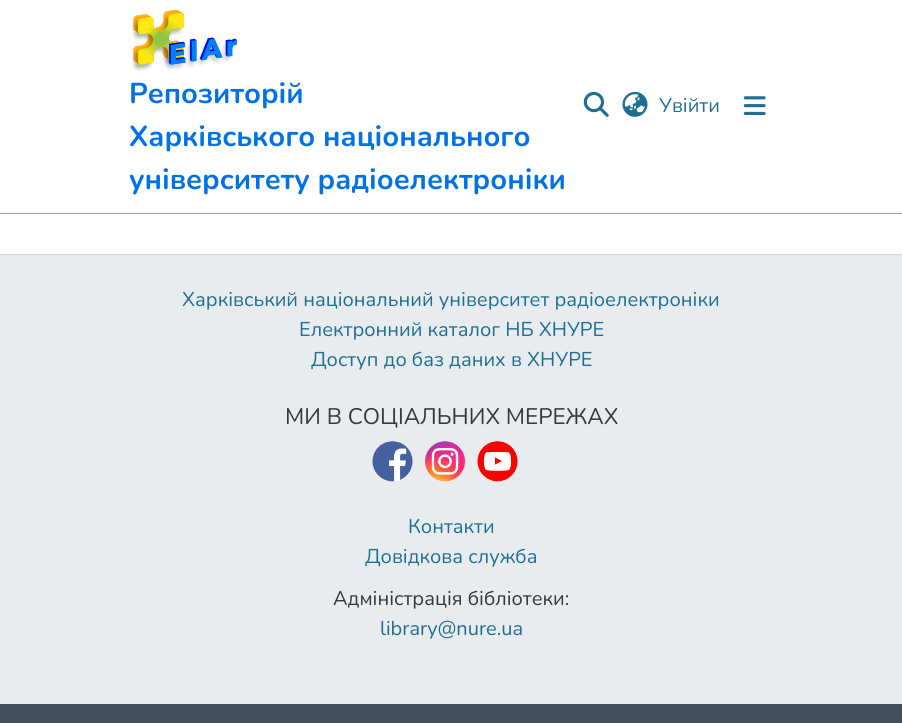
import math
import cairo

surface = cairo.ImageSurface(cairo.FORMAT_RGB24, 902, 723)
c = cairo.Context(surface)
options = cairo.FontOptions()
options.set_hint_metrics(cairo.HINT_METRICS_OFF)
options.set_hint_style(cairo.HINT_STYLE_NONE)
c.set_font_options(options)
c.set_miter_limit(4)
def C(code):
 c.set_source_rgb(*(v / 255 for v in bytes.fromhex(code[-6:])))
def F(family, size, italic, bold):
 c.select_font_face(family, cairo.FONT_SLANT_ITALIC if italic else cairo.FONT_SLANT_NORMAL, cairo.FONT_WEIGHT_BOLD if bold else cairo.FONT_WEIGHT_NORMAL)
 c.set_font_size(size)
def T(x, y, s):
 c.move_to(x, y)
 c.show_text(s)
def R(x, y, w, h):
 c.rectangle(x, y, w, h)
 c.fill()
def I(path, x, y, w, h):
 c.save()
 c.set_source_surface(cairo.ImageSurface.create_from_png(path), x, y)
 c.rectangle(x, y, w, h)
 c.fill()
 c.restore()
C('ffffff')
c.paint()
C('92c642')
R(0,213,902,1)
I('1.png',132,10,105,61)
F('Nunito',28.75,0,1)
C('0172e6')
T(129,103,'Репозиторій')
T(129,146,'Харківського національного')
T(129,189,'університету радіоелектроніки')
I('2.png',583,91,26,26)
I('3.png',622,91,26,26)
F('Nunito',20,0,0)
C('1e6f90')
T(659,112,'Увійти')
I('4.png',743,96,23,19)
C('43515f')
R(0,704,902,19)
C('ced4da')
R(0,254,902,1)
C('e9ecef')
R(0,255,902,449)
C('1e6f90')
T(182,306,'Харківський національний університет радіоелектроніки')
T(299,336,'Електронний каталог НБ ХНУРЕ')
T(311,366,'Доступ до баз даних в ХНУРЕ')
F('Nunito',22.5,0,0)
C('343a40')
T(285,424,'МИ В СОЦІАЛЬНИХ МЕРЕЖАХ')
I('5.png',372,441,41,41)
I('6.png',425,441,40,41)
I('7.png',477,441,41,41)
F('Nunito',20,0,0)
C('1e6f90')
T(408,533,'Контакти')
T(365,563,'Довідкова служба')
C('343a40')
T(333,605,'Адміністрація бібліотеки:')
C('1e6f90')
T(380,635,'library@nure.ua')
surface.write_to_png('o.png')
